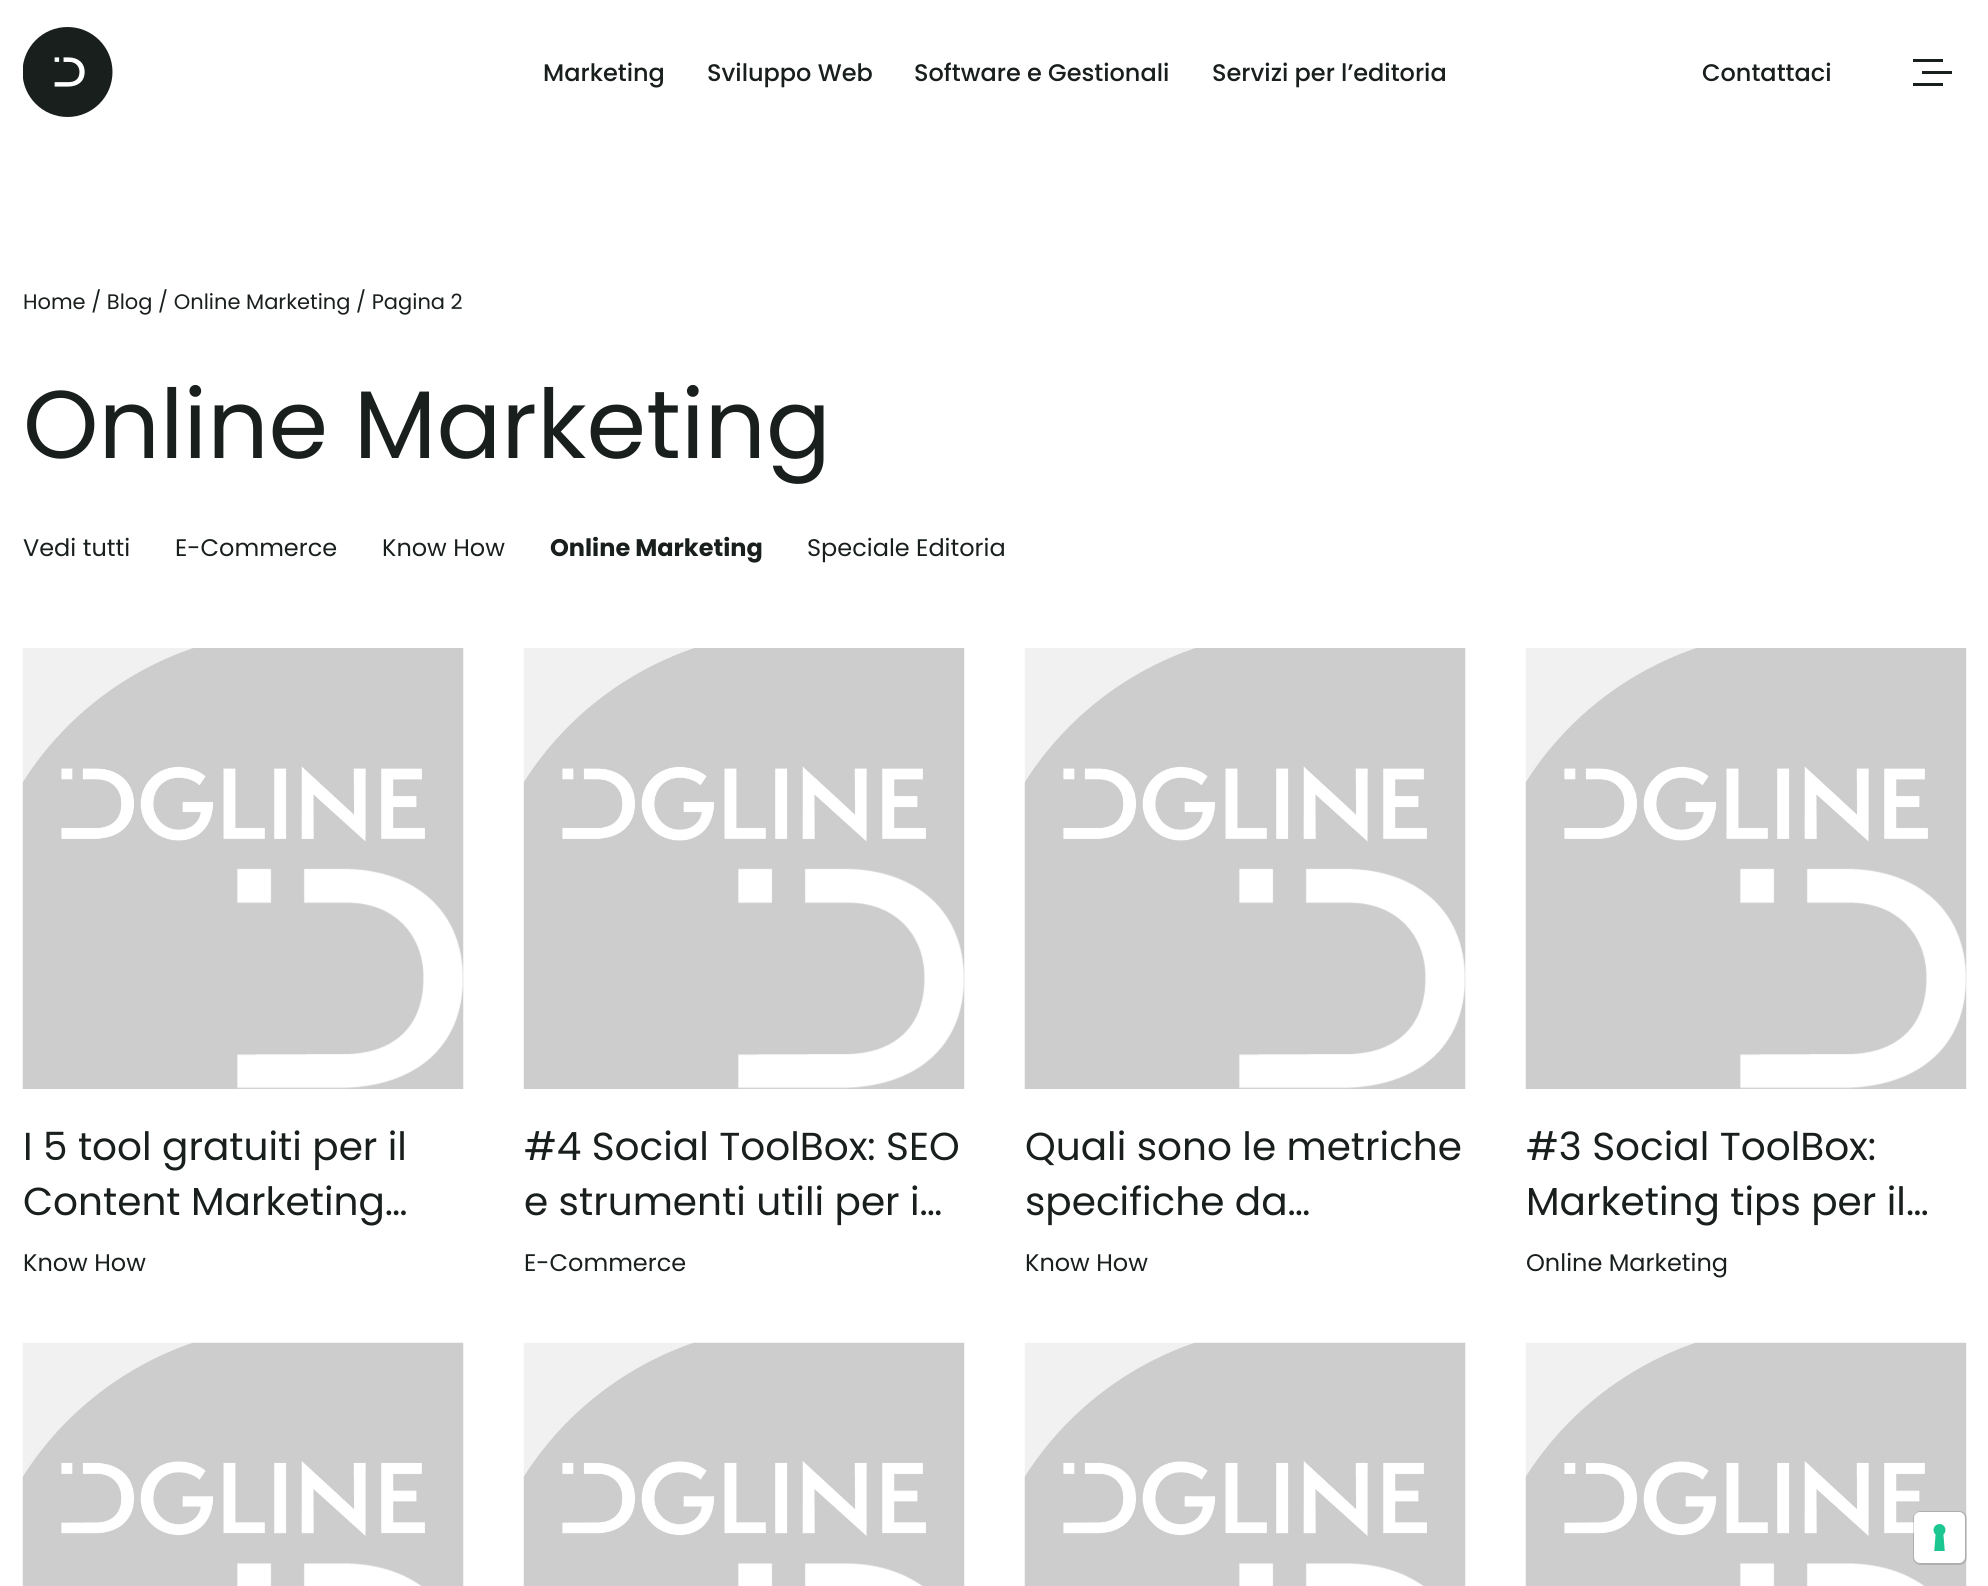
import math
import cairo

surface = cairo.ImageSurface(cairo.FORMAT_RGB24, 1988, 1586)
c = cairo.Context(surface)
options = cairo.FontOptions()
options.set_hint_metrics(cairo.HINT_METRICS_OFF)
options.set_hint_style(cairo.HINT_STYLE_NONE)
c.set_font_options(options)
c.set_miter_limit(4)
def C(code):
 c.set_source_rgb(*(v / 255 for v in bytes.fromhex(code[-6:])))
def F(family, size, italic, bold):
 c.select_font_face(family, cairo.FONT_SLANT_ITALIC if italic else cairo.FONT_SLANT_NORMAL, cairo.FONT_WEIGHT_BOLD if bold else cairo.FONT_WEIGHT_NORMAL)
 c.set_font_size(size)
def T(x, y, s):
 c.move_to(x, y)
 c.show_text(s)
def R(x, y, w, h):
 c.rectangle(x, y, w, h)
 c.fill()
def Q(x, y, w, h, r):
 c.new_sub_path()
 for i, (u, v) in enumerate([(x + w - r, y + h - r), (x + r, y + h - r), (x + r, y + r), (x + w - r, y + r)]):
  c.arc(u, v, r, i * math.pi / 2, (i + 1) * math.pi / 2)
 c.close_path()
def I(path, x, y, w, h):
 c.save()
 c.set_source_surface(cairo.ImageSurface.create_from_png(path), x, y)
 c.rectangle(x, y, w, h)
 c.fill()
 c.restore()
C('ffffff')
c.paint()
I('1.png',23,27,90,90)
F('Poppins Medium',24,0,0)
C('191f1c')
T(543,81,'Marketing')
T(707,81,'Sviluppo Web')
T(914,81,'Software e Gestionali')
T(1212,81,'Servizi per l’editoria')
T(1702,81,'Contattaci')
R(1913,59,30,3)
R(1922,71,30,3)
R(1913,83,30,3)
F('Poppins',21,0,0)
T(23,309,'Home / Blog / Online Marketing / Pagina 2')
F('Poppins',96,0,0)
T(23,458,'Online Marketing')
F('Poppins',24,0,0)
T(23,556,'Vedi tutti')
T(175,556,'E-Commerce')
T(382,556,'Know How')
F('Poppins',24,0,1)
T(550,556,'Online Marketing')
F('Poppins',24,0,0)
T(807,556,'Speciale Editoria')
I('2.png',22,648,442,441)
F('Poppins',39,0,0)
T(23,1160,'I 5 tool gratuiti per il')
T(23,1215,'Content Marketing…')
F('Poppins',24,0,0)
T(23,1271,'Know How')
I('2.png',523,648,442,441)
F('Poppins',39,0,0)
T(524,1160,'#4 Social ToolBox: SEO')
T(524,1215,'e strumenti utili per i…')
F('Poppins',24,0,0)
T(524,1271,'E-Commerce')
I('2.png',1024,648,442,441)
F('Poppins',39,0,0)
T(1025,1160,'Quali sono le metriche')
T(1025,1215,'specifiche da…')
F('Poppins',24,0,0)
T(1025,1271,'Know How')
I('2.png',1525,648,442,441)
F('Poppins',39,0,0)
T(1526,1160,'#3 Social ToolBox:')
T(1526,1215,'Marketing tips per il…')
F('Poppins',24,0,0)
T(1526,1271,'Online Marketing')
I('3.png',22,1342,442,244)
I('3.png',523,1342,442,244)
I('3.png',1024,1342,442,244)
I('3.png',1525,1342,442,244)
Q(1914,1512,52,52,7)
c.set_source_rgba(0,0,0,0.15)
c.stroke()
C('ffffff')
Q(1914,1512,51,51,6)
c.fill()
I('4.png',1933,1524,13,27)
surface.write_to_png('o.png')
